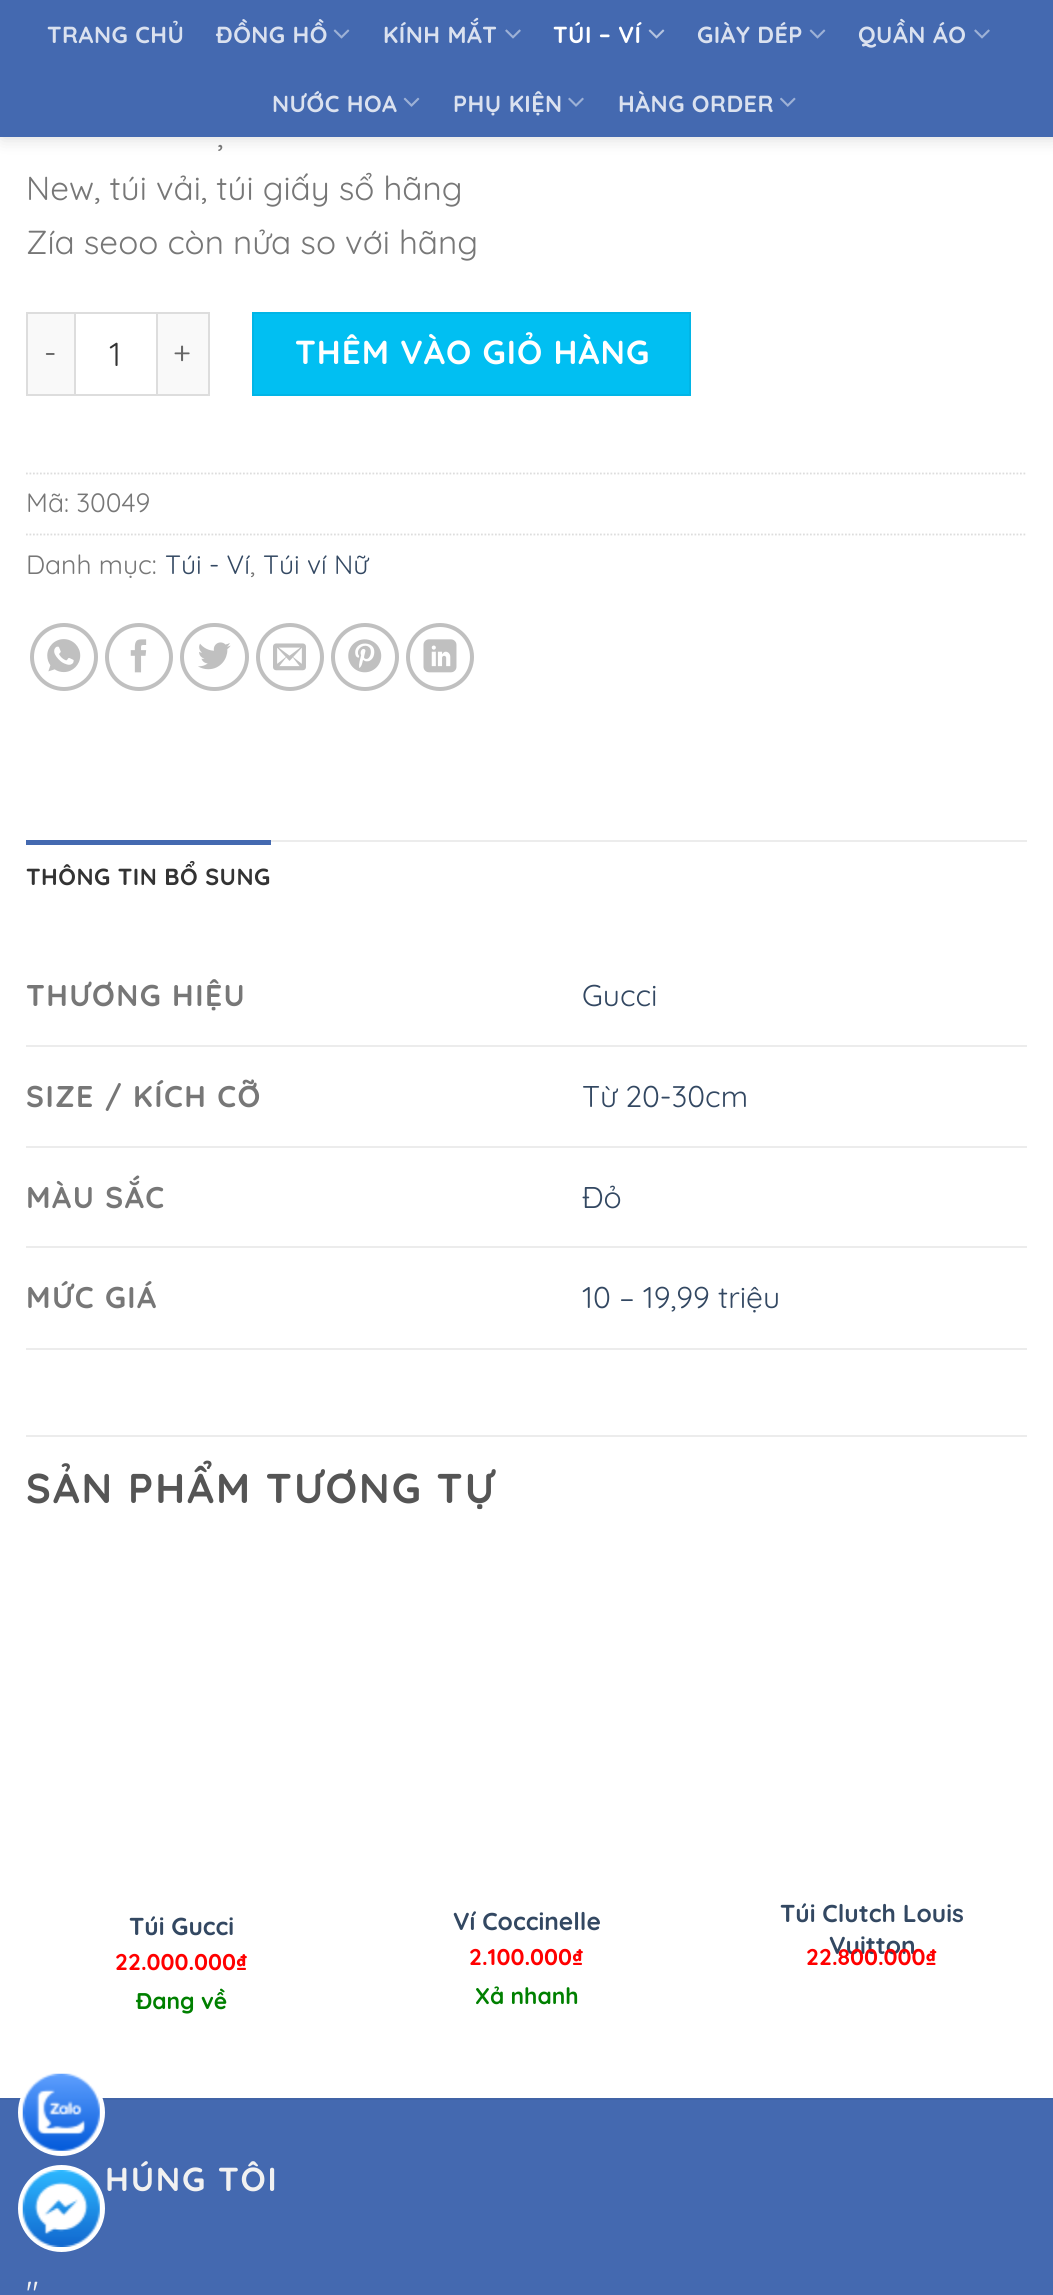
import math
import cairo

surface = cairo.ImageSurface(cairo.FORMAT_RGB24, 1053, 2295)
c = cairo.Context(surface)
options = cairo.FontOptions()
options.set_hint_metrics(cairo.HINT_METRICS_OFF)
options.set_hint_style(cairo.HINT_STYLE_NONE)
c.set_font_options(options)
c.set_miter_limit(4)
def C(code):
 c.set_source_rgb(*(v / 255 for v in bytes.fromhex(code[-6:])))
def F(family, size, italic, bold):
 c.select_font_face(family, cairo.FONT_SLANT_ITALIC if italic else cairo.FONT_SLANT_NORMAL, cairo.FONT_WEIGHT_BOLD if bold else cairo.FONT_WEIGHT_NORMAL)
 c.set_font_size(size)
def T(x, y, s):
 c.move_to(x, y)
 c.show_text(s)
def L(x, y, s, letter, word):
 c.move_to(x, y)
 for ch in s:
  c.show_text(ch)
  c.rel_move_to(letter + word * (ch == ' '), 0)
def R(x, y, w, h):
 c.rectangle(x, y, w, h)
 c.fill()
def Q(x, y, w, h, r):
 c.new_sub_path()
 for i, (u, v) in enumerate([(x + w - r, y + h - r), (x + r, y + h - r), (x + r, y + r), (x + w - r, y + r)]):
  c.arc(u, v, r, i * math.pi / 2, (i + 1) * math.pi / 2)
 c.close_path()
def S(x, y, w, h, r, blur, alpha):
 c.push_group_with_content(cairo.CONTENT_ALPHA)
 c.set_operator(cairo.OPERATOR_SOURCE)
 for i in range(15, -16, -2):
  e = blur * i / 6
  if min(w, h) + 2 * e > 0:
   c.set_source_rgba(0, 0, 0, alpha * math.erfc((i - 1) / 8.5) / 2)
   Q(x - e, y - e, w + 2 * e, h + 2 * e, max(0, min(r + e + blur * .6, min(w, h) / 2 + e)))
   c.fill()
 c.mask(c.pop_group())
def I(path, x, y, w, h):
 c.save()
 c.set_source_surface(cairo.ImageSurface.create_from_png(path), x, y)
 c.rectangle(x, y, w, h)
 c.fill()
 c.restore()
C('ffffff')
c.paint()
C('000000')
S(2,2,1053,136,0,9,.15)
C('4469b0')
R(0,0,1053,137)
F('Quicksand',23.25,0,1)
C('dae1ef')
L(47,43,'TRANG CHỦ',.5,0)
L(216,43,'ĐỒNG HỒ',.5,0)
I('1.png',333,29,17,10)
L(383,43,'KÍNH MẮT',.5,0)
I('2.png',505,29,16,10)
C('ffffff')
L(553,43,'TÚI – VÍ',.5,0)
I('3.png',648,29,17,10)
C('dae1ef')
L(697,43,'GIÀY DÉP',.5,0)
I('1.png',809,29,17,10)
L(858,43,'QUẦN ÁO',.5,0)
I('2.png',974,29,16,10)
L(272,112,'NƯỚC HOA',.5,0)
I('4.png',403,97,17,10)
L(453,112,'PHỤ KIỆN',.5,0)
I('5.png',568,97,16,10)
L(618,112,'HÀNG ORDER',.5,0)
I('6.png',780,97,16,10)
F('Quicksand',33.25,0,0)
C('777777')
T(217,147,',')
T(26,200,'New, túi vải, túi giấy sổ hãng')
T(26,254,'Zía seoo còn nửa so với hãng')
C('f9f9f9')
R(28,314,46,80)
C('dddddd')
R(26,312,48,2)
R(26,394,48,2)
R(26,312,2,84)
F('Quicksand',32,0,0)
C('666666')
L(44,364,'-',1,0)
c.rectangle(75,313,82,82)
C('dddddd')
c.stroke()
F('Quicksand',33.25,0,0)
C('333333')
T(109,366,'1')
C('f9f9f9')
R(158,314,50,80)
C('dddddd')
R(158,312,52,2)
R(208,312,2,84)
R(158,394,52,2)
F('Quicksand',32,0,0)
C('666666')
L(173,364,'+',1,0)
C('01bff2')
c.rectangle(253,313,437,82)
c.fill_preserve()
C('01b5e6')
c.stroke()
F('Quicksand',33.25,0,1)
C('ffffff')
L(295,364,'THÊM VÀO GIỎ HÀNG',1,0)
c.new_path()
c.move_to(26,473.5)
c.line_to(1027,473.5)
C('dddddd')
c.set_line_width(1.8)
c.set_dash([1.75,1.75])
c.stroke()
F('Quicksand',26.5,0,0)
C('777777')
T(26,512,'Mã: 30049')
c.new_path()
c.move_to(26,534.5)
c.line_to(1027,534.5)
C('dddddd')
c.stroke()
C('777777')
T(26,574,'Danh mục:')
C('334862')
T(165,574,'Túi - Ví')
C('777777')
T(250,574,',')
C('334862')
T(263,574,'Túi ví Nữ')
c.new_path()
c.arc(64,657,32,0,2 * math.pi)
C('c0c0c0')
c.set_line_width(4)
c.set_dash([])
c.stroke()
I('7.png',47,639,34,34)
c.arc(139,657,32,0,2 * math.pi)
c.stroke()
I('8.png',130,639,17,34)
Q(182,625,65,64,32)
c.stroke()
I('9.png',198,642,33,28)
c.arc(290,657,32,0,2 * math.pi)
c.stroke()
I('10.png',273,643,33,28)
c.arc(365,657,32,0,2 * math.pi)
c.stroke()
I('11.png',348,639,34,34)
c.arc(440,657,32,0,2 * math.pi)
c.stroke()
I('12.png',423,639,34,34)
C('ececec')
R(271,840,756,2)
C('4469b0')
R(26,840,245,5)
F('Quicksand',23.25,0,1)
C('333333')
L(26,885,'THÔNG TIN BỔ SUNG',.5,0)
C('ececec')
R(26,1045,1001,2)
F('Quicksand',30,0,1)
C('777777')
L(26,1006,'THƯƠNG HIỆU',1.5,0)
F('Quicksand',30,0,0)
C('334862')
T(582,1006,'Gucci')
C('ececec')
R(26,1146,1001,2)
F('Quicksand',30,0,1)
C('777777')
L(26,1107,'SIZE / KÍCH CỠ',1.5,0)
F('Quicksand',30,0,0)
C('334862')
T(582,1107,'Từ 20-30cm')
C('ececec')
R(26,1246,1001,2)
F('Quicksand',30,0,1)
C('777777')
L(26,1208,'MÀU SẮC',1.5,0)
F('Quicksand',30,0,0)
C('334862')
T(582,1208,'Đỏ')
C('ececec')
R(26,1348,1001,2)
F('Quicksand',30,0,1)
C('777777')
L(26,1308,'MỨC GIÁ',1.5,0)
F('Quicksand',30,0,0)
C('334862')
T(582,1308,'10 – 19,99 triệu')
C('ececec')
R(26,1435,1001,2)
F('Quicksand',41.6,0,1)
C('555555')
L(26,1503,'SẢN PHẨM TƯƠNG TỰ',2.1,0)
F('Quicksand',24.5,0,1)
C('334862')
T(129,1935,'Túi Gucci')
F('Quicksand',22.75,0,1)
C('ff0000')
T(115,1970,'22.000.000₫')
C('008000')
T(136,2009,'Đang về')
F('Quicksand',24.5,0,1)
C('334862')
T(453,1930,'Ví Coccinelle')
F('Quicksand',22.75,0,1)
C('ff0000')
T(469,1965,'2.100.000₫')
C('008000')
T(475,2004,'Xả nhanh')
F('Quicksand',24.5,0,1)
C('334862')
T(780,1922,'Túi Clutch Louis')
T(829,1954,'Vuitton')
F('Quicksand',22.75,0,1)
C('ff0000')
T(806,1965,'22.800.000₫')
C('4469b0')
R(0,2100,1053,195)
C('4164a7')
R(0,2098,1053,2)
F('Quicksand',33.25,0,1)
C('f1f1f1')
L(105,2191,'HÚNG TÔI',1.75,0)
F('Quicksand',33.25,0,0)
T(26,2305,'"')
C('ffffff')
c.new_path()
c.arc(61.5,2112.5,43.5,0,2 * math.pi)
c.fill()
I('13.png',22,2073,78,78)
c.arc(61.5,2208.5,43.5,0,2 * math.pi)
c.fill()
I('14.png',22,2170,78,77)
surface.write_to_png('o.png')
